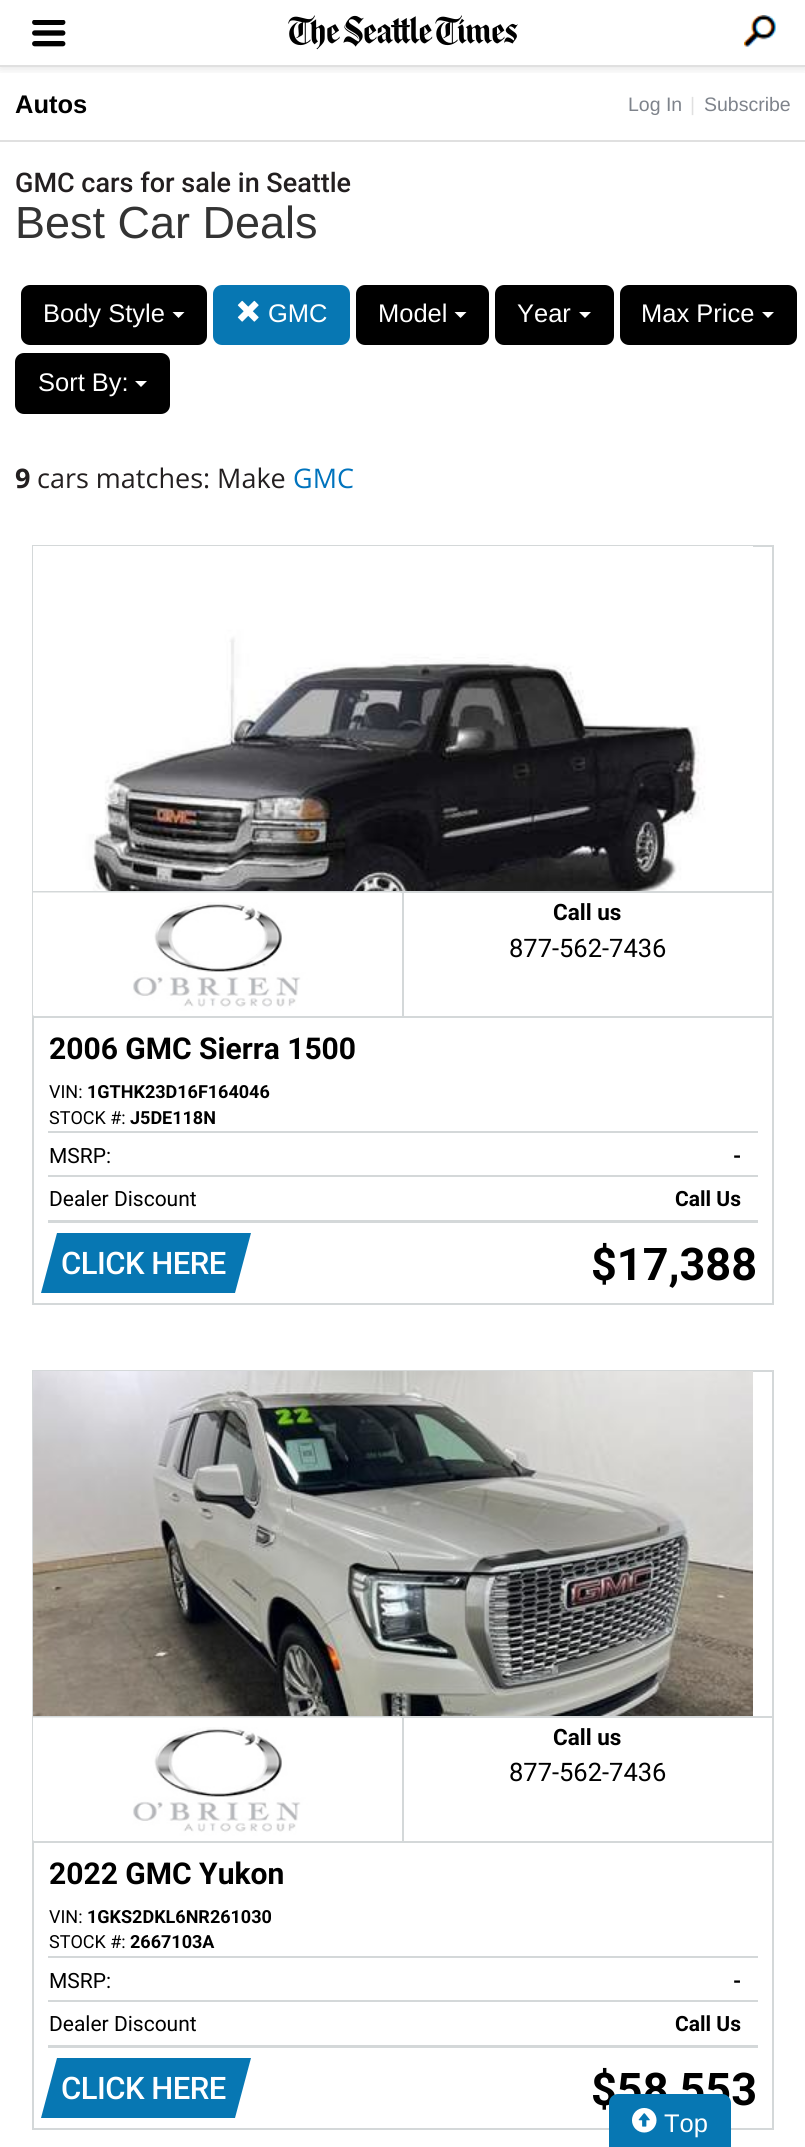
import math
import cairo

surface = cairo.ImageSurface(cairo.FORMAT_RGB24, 805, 2147)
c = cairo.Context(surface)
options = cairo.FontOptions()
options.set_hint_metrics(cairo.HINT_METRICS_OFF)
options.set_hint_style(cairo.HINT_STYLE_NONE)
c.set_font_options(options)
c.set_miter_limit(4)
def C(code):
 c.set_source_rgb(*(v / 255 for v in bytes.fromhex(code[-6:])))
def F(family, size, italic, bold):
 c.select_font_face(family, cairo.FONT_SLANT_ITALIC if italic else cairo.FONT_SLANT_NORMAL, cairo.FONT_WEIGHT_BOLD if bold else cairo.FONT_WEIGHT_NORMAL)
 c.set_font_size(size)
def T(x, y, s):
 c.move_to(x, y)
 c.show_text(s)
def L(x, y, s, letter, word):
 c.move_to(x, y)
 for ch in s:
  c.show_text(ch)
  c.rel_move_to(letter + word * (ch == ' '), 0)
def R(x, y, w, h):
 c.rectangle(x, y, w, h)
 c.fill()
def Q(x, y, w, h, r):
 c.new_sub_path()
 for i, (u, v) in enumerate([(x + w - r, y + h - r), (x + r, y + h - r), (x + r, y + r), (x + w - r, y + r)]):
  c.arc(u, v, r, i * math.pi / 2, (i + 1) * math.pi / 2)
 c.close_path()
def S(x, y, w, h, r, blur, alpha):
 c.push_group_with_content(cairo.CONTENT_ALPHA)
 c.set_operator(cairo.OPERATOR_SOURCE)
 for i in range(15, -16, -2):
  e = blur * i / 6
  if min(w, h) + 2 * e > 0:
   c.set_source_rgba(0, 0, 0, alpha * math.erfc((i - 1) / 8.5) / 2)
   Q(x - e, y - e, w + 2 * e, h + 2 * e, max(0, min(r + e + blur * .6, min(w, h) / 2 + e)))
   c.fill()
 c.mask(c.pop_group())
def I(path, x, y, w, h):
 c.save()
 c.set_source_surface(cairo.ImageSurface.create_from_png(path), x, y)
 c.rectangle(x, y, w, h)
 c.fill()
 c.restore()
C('ffffff')
c.paint()
c.save()
c.rectangle(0,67,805,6)
c.clip()
C('000000')
S(0,3,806,66,0,5,.1)
c.restore()
C('e0e0e0')
R(0,65,805,2)
I('1.png',32,20,34,27)
I('2.png',288,15,230,35)
I('3.png',744,15,32,32)
R(0,140,805,2)
F('Liberation Sans',25.5,0,1)
C('000000')
T(15,113,'Autos')
F('Liberation Sans',19.5,0,0)
C('7e838b')
T(628,111,'Log In')
C('e0e0e0')
T(690,111,'|')
C('7e838b')
T(704,111,'Subscribe')
F('Roboto Medium',27,0,0)
C('231f20')
T(15,192,'GMC cars for sale in Seattle')
F('Liberation Sans',45,0,0)
C('333333')
T(15,238,'Best Car Deals')
C('000000')
Q(21,285,186,60,9)
c.fill()
F('Liberation Sans',25.5,0,0)
C('ffffff')
T(43,322,'Body Style')
c.new_path()
c.move_to(172.5,312)
c.line_to(184.5,312)
c.line_to(178.5,318)
c.close_path()
c.fill()
C('0777b3')
Q(213,285,137,60,9)
c.fill()
I('4.png',237,300,22,22)
C('ffffff')
T(268,322,'GMC')
C('000000')
Q(356,285,133,60,9)
c.fill()
C('ffffff')
T(378,322,'Model')
c.new_path()
c.move_to(454.5,312)
c.line_to(466.5,312)
c.line_to(460.5,318)
c.close_path()
c.fill()
C('000000')
Q(495,285,119,60,9)
c.fill()
C('ffffff')
T(517,322,'Year')
c.new_path()
c.move_to(579,312)
c.line_to(591,312)
c.line_to(585,318)
c.close_path()
c.fill()
C('000000')
Q(620,285,177,60,9)
c.fill()
C('ffffff')
T(641,322,'Max Price')
c.new_path()
c.move_to(762,312)
c.line_to(774,312)
c.line_to(768,318)
c.close_path()
c.fill()
C('000000')
Q(15,353,155,61,9)
c.fill()
C('ffffff')
T(38,391,'Sort By:')
c.new_path()
c.move_to(135,381)
c.line_to(147,381)
c.line_to(141,387)
c.close_path()
c.fill()
F('Open Sans',27,0,1)
C('231f20')
T(15,488,'9')
F('Open Sans',27,0,0)
T(37,488,'cars matches: Make')
C('0073bd')
T(293,488,'GMC')
c.rectangle(33,546,740,758)
C('d4d8d9')
c.stroke()
I('5.png',33,546,720,345)
R(33,891,740,2)
R(402,891,2,126)
R(33,1016,740,2)
I('6.png',33,892,368,124)
F('Roboto',22.5,0,1)
C('000000')
T(553,920,'Call us')
F('Roboto',25.5,0,0)
T(509,957,'877-562-7436')
F('Roboto',30,0,1)
T(49,1059,'2006 GMC Sierra 1500')
F('Roboto',18,0,0)
T(49,1098,'VIN:')
F('Roboto',18,0,1)
T(87,1098,'1GTHK23D16F164046')
F('Roboto',18,0,0)
T(49,1124,'STOCK #:')
F('Roboto',18,0,1)
T(130,1124,'J5DE118N')
C('d4d8d9')
R(48,1131,710,2)
R(48,1175,710,2)
F('Roboto',21,0,0)
C('000000')
T(49,1163,'MSRP:')
F('Roboto',21,0,1)
T(733,1163,'-')
C('d4d8d9')
R(48,1220,710,3)
F('Roboto',21,0,0)
C('000000')
T(49,1206,'Dealer Discount')
F('Roboto',21,0,1)
T(675,1206,'Call Us')
C('0777b3')
c.new_path()
c.move_to(57,1233)
c.line_to(251,1233)
c.line_to(235,1293)
c.line_to(41,1293)
c.close_path()
c.fill()
F('Roboto Medium',31,0,0)
C('ffffff')
L(61,1274,'CLICK HERE',-.5,0)
F('Roboto',45,0,1)
C('000000')
T(591,1280,'$17,388')
c.rectangle(33,1371,740,758)
C('d4d8d9')
c.stroke()
I('7.png',33,1371,720,345)
R(33,1716,740,2)
R(402,1716,2,126)
R(33,1841,740,2)
I('6.png',33,1717,368,124)
F('Roboto',22.5,0,1)
C('000000')
T(553,1745,'Call us')
F('Roboto',25.5,0,0)
T(509,1781,'877-562-7436')
F('Roboto',30,0,1)
T(49,1884,'2022 GMC Yukon')
F('Roboto',18,0,0)
T(49,1923,'VIN:')
F('Roboto',18,0,1)
T(87,1923,'1GKS2DKL6NR261030')
F('Roboto',18,0,0)
T(49,1948,'STOCK #:')
F('Roboto',18,0,1)
T(130,1948,'2667103A')
C('d4d8d9')
R(48,1956,710,2)
R(48,2000,710,2)
F('Roboto',21,0,0)
C('000000')
T(49,1988,'MSRP:')
F('Roboto',21,0,1)
T(733,1988,'-')
C('d4d8d9')
R(48,2045,710,3)
F('Roboto',21,0,0)
C('000000')
T(49,2031,'Dealer Discount')
F('Roboto',21,0,1)
T(675,2031,'Call Us')
C('0777b3')
c.new_path()
c.move_to(57,2058)
c.line_to(251,2058)
c.line_to(235,2118)
c.line_to(41,2118)
c.close_path()
c.fill()
F('Roboto Medium',31,0,0)
C('ffffff')
L(61,2099,'CLICK HERE',-.5,0)
F('Roboto',45,0,1)
C('000000')
T(591,2105,'$58,553')
C('0777b3')
Q(610,2095,120,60,8)
c.fill_preserve()
c.stroke()
I('8.png',632,2108,25,25)
F('Liberation Sans',25.5,0,0)
C('ffffff')
T(664,2132,'Top')
surface.write_to_png('o.png')
